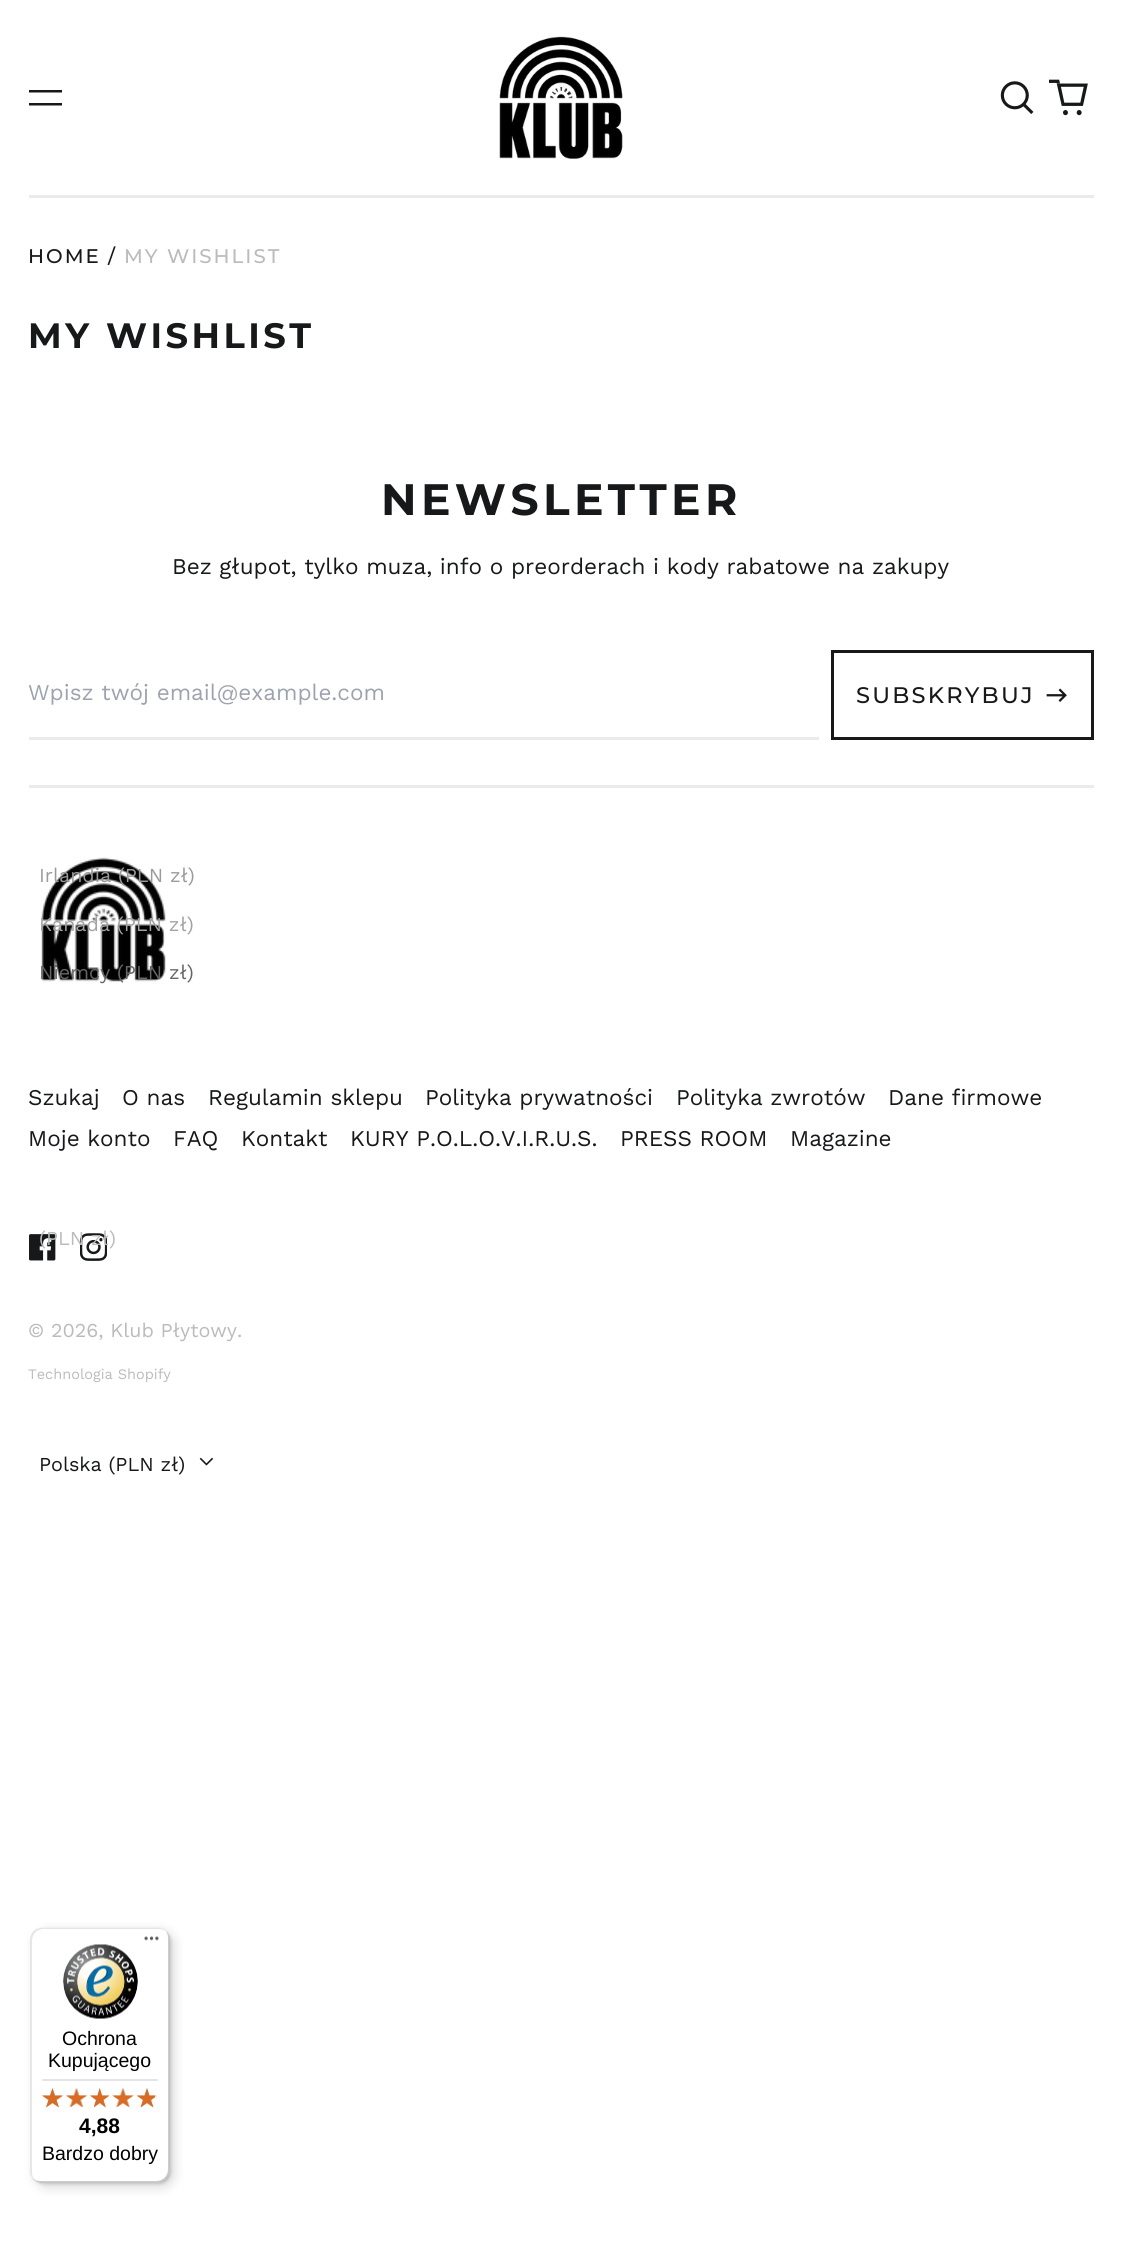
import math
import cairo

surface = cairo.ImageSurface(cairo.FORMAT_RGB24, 1122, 2263)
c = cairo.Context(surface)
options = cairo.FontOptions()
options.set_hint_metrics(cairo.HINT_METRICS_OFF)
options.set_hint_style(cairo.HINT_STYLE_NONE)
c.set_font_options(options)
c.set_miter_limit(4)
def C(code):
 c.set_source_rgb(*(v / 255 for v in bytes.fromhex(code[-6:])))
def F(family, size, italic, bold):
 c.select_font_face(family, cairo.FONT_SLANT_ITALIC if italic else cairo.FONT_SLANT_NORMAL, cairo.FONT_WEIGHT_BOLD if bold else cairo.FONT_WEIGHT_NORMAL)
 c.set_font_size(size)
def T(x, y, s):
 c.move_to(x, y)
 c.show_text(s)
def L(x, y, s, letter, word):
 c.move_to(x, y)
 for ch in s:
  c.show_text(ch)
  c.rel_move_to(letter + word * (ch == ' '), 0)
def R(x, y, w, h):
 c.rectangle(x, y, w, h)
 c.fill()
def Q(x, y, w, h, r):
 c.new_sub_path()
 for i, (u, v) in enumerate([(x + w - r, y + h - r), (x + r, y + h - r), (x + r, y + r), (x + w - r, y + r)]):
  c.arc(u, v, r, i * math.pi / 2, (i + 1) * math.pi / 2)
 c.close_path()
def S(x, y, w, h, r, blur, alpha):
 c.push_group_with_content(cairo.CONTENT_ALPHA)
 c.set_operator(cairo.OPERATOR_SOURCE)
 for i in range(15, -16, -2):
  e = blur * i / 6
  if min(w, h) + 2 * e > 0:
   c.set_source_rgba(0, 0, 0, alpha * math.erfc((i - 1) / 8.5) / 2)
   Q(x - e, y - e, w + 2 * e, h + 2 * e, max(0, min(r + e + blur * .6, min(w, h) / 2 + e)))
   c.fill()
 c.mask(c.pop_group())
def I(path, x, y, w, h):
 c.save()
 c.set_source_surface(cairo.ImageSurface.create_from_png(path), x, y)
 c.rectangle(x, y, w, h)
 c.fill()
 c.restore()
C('ffffff')
c.paint()
C('ebebeb')
R(29,195,1065,3)
c.save()
c.rectangle(29,81,33,33)
c.clip()
C('161819')
c.set_fill_rule(cairo.FILL_RULE_EVEN_ODD)
c.new_path()
c.move_to(62,103)
c.line_to(62,105.5)
c.line_to(28.5,105.5)
c.line_to(28.5,103)
c.close_path()
c.move_to(62,90)
c.line_to(62,92.5)
c.line_to(28.5,92.5)
c.line_to(28.5,90)
c.close_path()
c.fill()
c.restore()
I('1.png',499,36,124,123)
I('2.png',1000,81,34,33)
I('3.png',1049,79,39,37)
F('Montserrat Medium',19.75,0,0)
C('161819')
L(28,263,'HOME /',2,0)
C('bbbbbb')
L(124,263,'MY WISHLIST',2,0)
F('Montserrat',35.25,0,1)
C('161819')
L(28,348,'MY WISHLIST',3.5,0)
F('Montserrat',44,0,1)
L(381,515,'NEWSLETTER',4.4,0)
F('Work Sans',22.5,0,0)
T(172,574,'Bez głupot, tylko muza, info o preorderach i kody rabatowe na zakupy')
C('ebebeb')
R(29,737,790,3)
C('9ca3af')
T(28,700,'Wpisz twój email@example.com')
c.rectangle(832.5,651.5,260,87)
C('161819')
c.set_line_width(3)
c.stroke()
F('Montserrat Medium',22.5,0,0)
L(856,703,'SUBSKRYBUJ',2.25,0)
I('4.png',1046,688,21,14)
I('6.png',41,857,125,125)
F('Work Sans',19.75,0,0)
C('9a9a9a')
T(39,882,'Irlandia (PLN zł)')
C('a2a2a2')
T(39,931,'Kanada (PLN zł)')
C('666666')
T(39,979,'Niemcy (PLN zł)')
I('7.png',29,1234,27,27)
I('8.png',80,1233,27,28)
C('bbbbbb')
T(39,1245,'(PLN zł)')
C('161819')
T(39,1471,'Polska (PLN zł)')
I('5.png',199,1457,15,9)
C('bbbbbb')
T(28,1337,'© 2026, Klub Płytowy.')
F('Work Sans',14.5,0,0)
T(28,1379,'Technologia Shopify')
C('ebebeb')
R(29,785,1065,3)
F('Work Sans',22.5,0,0)
C('161819')
T(28,1105,'Szukaj')
T(122,1105,'O nas')
T(208,1105,'Regulamin sklepu')
T(425,1105,'Polityka prywatności')
T(676,1105,'Polityka zwrotów')
T(888,1105,'Dane firmowe')
T(28,1146,'Moje konto')
T(173,1146,'FAQ')
T(241,1146,'Kontakt')
T(350,1146,'KURY P.O.L.O.V.I.R.U.S.')
T(620,1146,'PRESS ROOM')
T(790,1146,'Magazine')
C('000000')
S(35,1932,139,255,12,6,.15)
S(32,1929,139,255,12,1.5,.15)
C('ffffff')
Q(30,1928,140,255,12)
c.fill()
c.set_source_rgba(0,0,0,0.1)
c.new_path()
c.move_to(44,1929)
c.line_to(159,1929)
c.curve_to(162,1929,164,1930,166,1931)
c.curve_to(164,1929,161,1928,158,1928)
c.line_to(42,1928)
c.curve_to(35,1928,30,1933,30,1940)
c.line_to(30,2171)
c.curve_to(30,2176,33,2180,37,2182)
c.curve_to(34,2180,32,2176,32,2172)
c.line_to(32,1941)
c.curve_to(32,1934,37,1929,44,1929)
c.close_path()
c.fill()
c.set_source_rgba(0,0,0,0.2)
c.new_path()
c.move_to(32,2178)
c.curve_to(35,2181,38,2183,42,2183)
c.line_to(158,2183)
c.curve_to(165,2183,170,2178,170,2171)
c.line_to(170,1940)
c.curve_to(170,1936,168,1933,166,1931)
c.curve_to(167,1933,168,1935,168,1938)
c.line_to(168,2169)
c.curve_to(168,2176,163,2181,156,2181)
c.line_to(40,2181)
c.curve_to(37,2181,35,2180,32,2178)
c.close_path()
c.fill()
c.set_source_rgba(0.196,0.196,0.196,0.2)
c.new_path()
c.move_to(33,2179)
c.curve_to(35,2181,38,2183,42,2183)
c.line_to(158,2183)
c.curve_to(165,2183,170,2178,170,2171)
c.line_to(170,1940)
c.curve_to(170,1936,168,1933,166,1931)
c.curve_to(168,1933,169,1936,169,1939)
c.line_to(169,2170)
c.curve_to(169,2176,163,2182,157,2182)
c.line_to(41,2182)
c.curve_to(38,2182,35,2181,33,2179)
c.close_path()
c.fill()
c.set_source_rgba(1,1,1,0.3)
c.new_path()
c.move_to(32,2177)
c.curve_to(34,2181,37,2183,42,2183)
c.line_to(158,2183)
c.curve_to(165,2183,170,2178,170,2171)
c.line_to(170,1940)
c.curve_to(170,1936,168,1933,166,1931)
c.curve_to(168,1933,169,1936,169,1939)
c.line_to(169,2170)
c.curve_to(169,2176,163,2182,157,2182)
c.line_to(41,2182)
c.curve_to(37,2182,34,2180,32,2177)
c.close_path()
c.fill()
I('9.png',144,1936,15,5)
I('10.png',63,1944,75,75)
F('Liberation Sans',19.5,0,0)
C('000000')
T(62,2045,'Ochrona')
T(48,2067,'Kupującego')
C('e5e5e5')
R(42,2079,116,2)
I('11.png',42,2088,21,20)
I('12.png',66,2088,21,19)
I('13.png',90,2088,19,20)
I('14.png',112,2088,22,19)
I('15.png',137,2088,20,20)
I('16.png',42,2088,21,20)
I('17.png',66,2088,21,19)
I('18.png',90,2088,20,20)
I('19.png',112,2088,22,19)
I('20.png',137,2088,18,20)
F('Liberation Sans',21,0,1)
C('000000')
T(79,2133,'4,88')
F('Liberation Sans',19.5,0,0)
T(42,2160,'Bardzo dobry')
surface.write_to_png('o.png')
